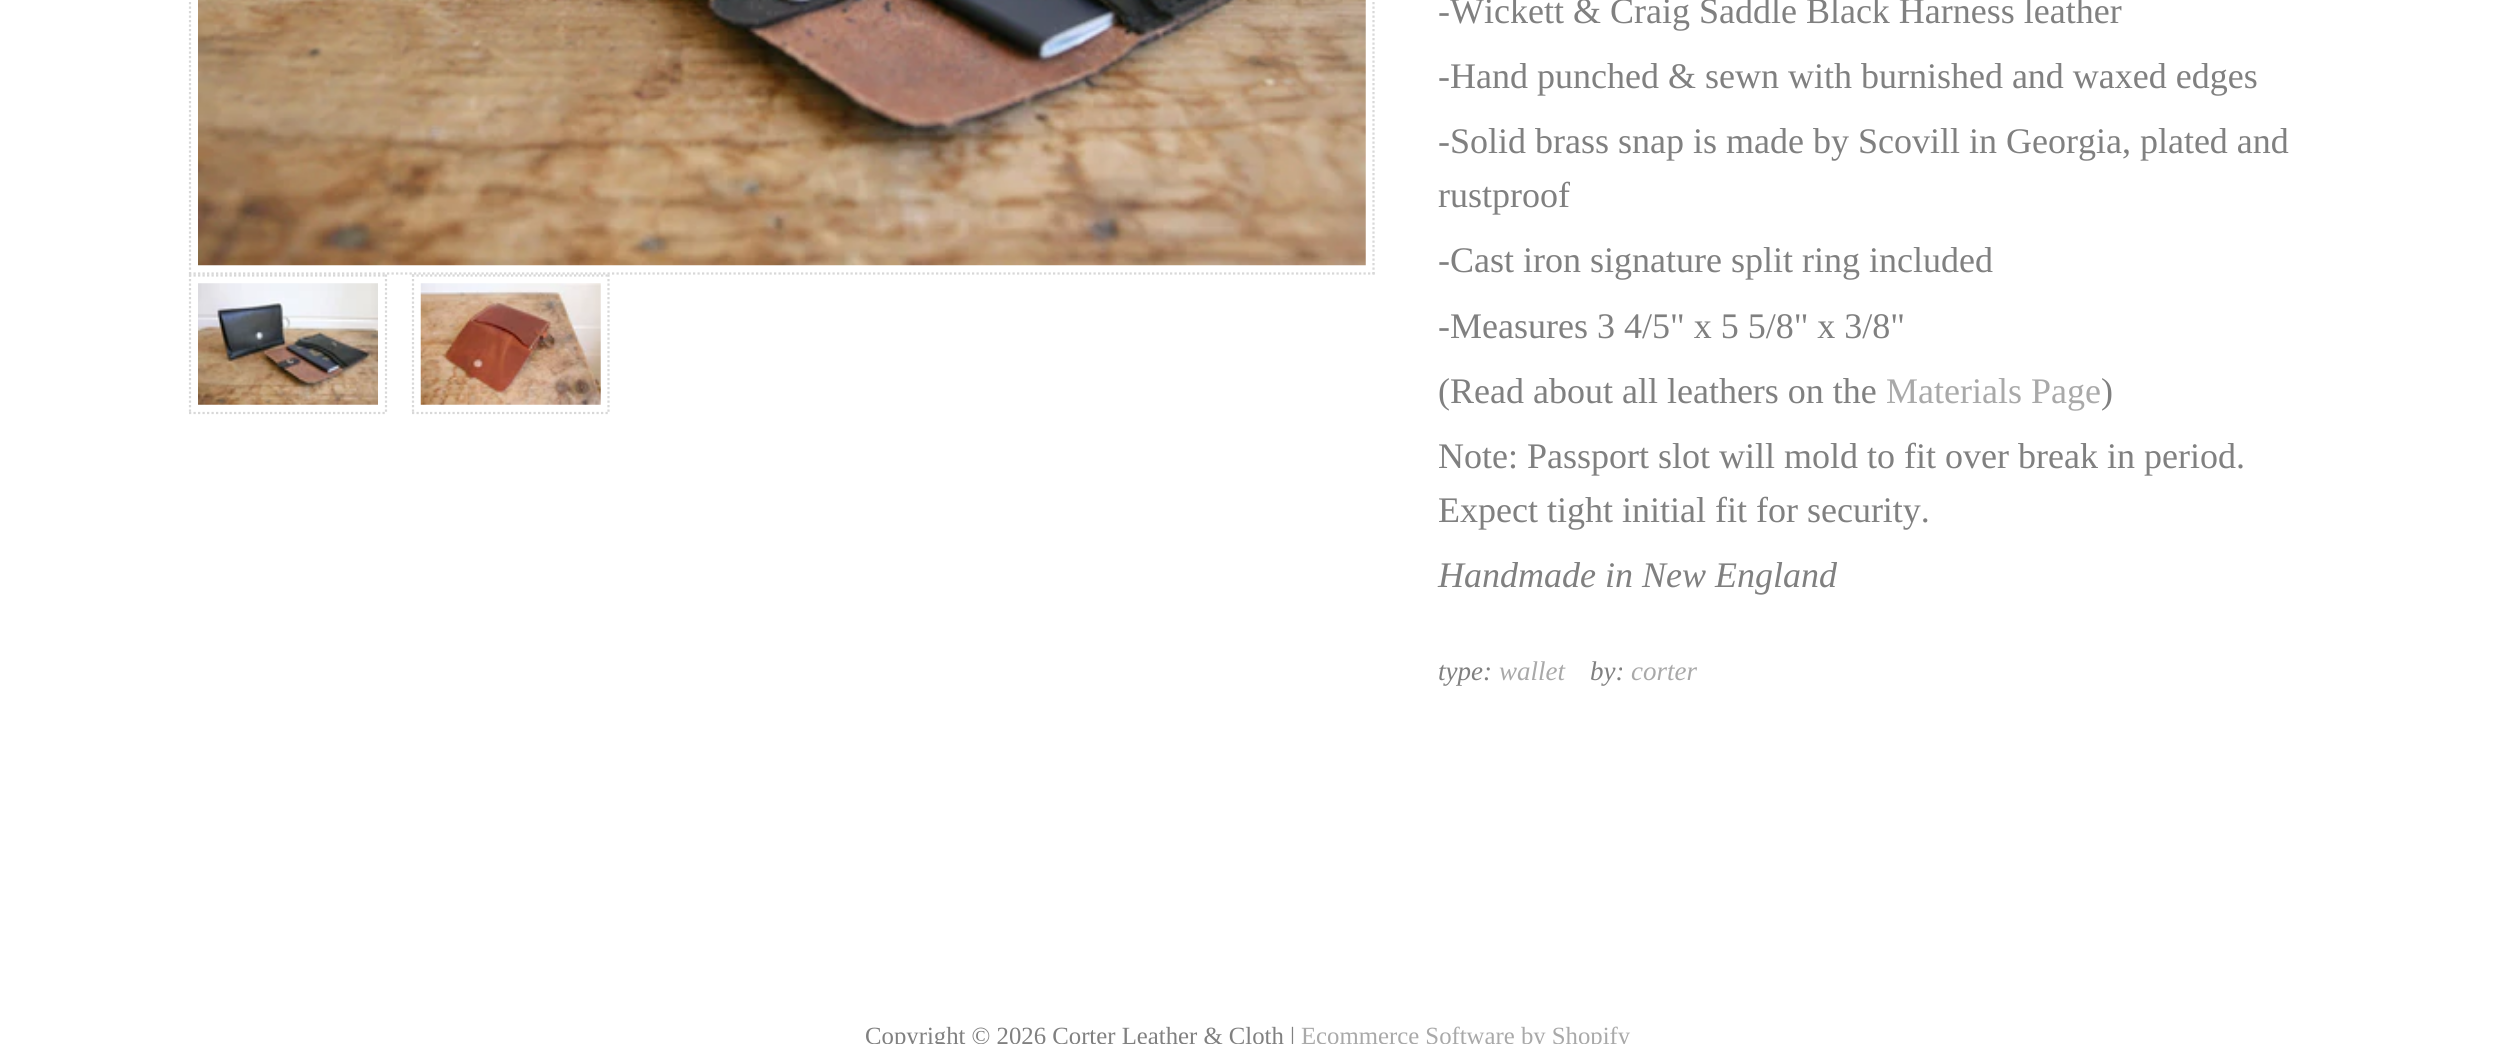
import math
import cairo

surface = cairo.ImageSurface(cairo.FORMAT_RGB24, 2494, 1044)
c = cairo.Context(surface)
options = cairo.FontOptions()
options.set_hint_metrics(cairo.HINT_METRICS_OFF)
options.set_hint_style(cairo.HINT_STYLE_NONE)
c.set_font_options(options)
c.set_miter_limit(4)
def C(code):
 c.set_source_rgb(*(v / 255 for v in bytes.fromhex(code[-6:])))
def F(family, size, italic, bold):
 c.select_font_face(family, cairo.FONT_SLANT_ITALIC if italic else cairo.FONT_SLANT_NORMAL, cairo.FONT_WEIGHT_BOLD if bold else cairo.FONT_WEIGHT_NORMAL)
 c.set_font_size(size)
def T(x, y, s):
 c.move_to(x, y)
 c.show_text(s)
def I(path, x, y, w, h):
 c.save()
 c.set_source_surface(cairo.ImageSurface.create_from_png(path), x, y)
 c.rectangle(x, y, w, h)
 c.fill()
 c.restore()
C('ffffff')
c.paint()
c.new_path()
c.move_to(1373.5,-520)
c.line_to(1373.5,274.5)
C('d8d8d8')
c.set_line_width(2.2)
c.set_dash([2.25,2.25])
c.stroke()
c.new_path()
c.move_to(189,273.5)
c.line_to(1375,273.5)
c.stroke()
c.new_path()
c.move_to(190,-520)
c.line_to(190,274.5)
c.stroke()
I('1.png',198,0,1168,266)
c.new_path()
c.move_to(189,275.5)
c.line_to(387,275.5)
c.stroke()
c.new_path()
c.move_to(386,274.5)
c.line_to(386,414)
c.stroke()
c.new_path()
c.move_to(189,413)
c.line_to(387,413)
c.stroke()
c.new_path()
c.move_to(190,274.5)
c.line_to(190,414)
c.stroke()
I('2.png',198,283,180,122)
c.new_path()
c.move_to(412,275.5)
c.line_to(610,275.5)
c.stroke()
c.new_path()
c.move_to(608.5,274.5)
c.line_to(608.5,414)
c.stroke()
c.new_path()
c.move_to(412,413)
c.line_to(610,413)
c.stroke()
c.new_path()
c.move_to(413,274.5)
c.line_to(413,414)
c.stroke()
I('3.png',420,283,181,122)
F('Liberation Serif',36,0,0)
C('808080')
T(1438,23,'-Wickett & Craig Saddle Black Harness leather')
T(1438,88,'-Hand punched & sewn with burnished and waxed edges')
T(1438,153,'-Solid brass snap is made by Scovill in Georgia, plated and')
T(1438,207,'rustproof')
T(1438,272,'-Cast iron signature split ring included')
T(1438,338,'-Measures 3 4/5" x 5 5/8" x 3/8"')
T(1438,403,'(Read about all leathers on the')
C('a9a9a9')
T(1886,403,'Materials Page')
C('808080')
T(2101,403,')')
T(1438,468,'Note: Passport slot will mold to fit over break in period.')
T(1438,522,'Expect tight initial fit for security.')
F('Liberation Serif',36,1,0)
T(1438,587,'Handmade in New England')
F('Liberation Serif',27,1,0)
T(1438,680,'type:')
C('a9a9a9')
T(1499,680,'wallet')
C('808080')
T(1590,680,'by:')
C('a9a9a9')
T(1631,680,'corter')
F('Liberation Serif',24.75,0,0)
C('808080')
T(865,1044,'Copyright © 2026 Corter Leather & Cloth |')
C('a9a9a9')
T(1301,1044,'Ecommerce Software by Shopify')
surface.write_to_png('o.png')
